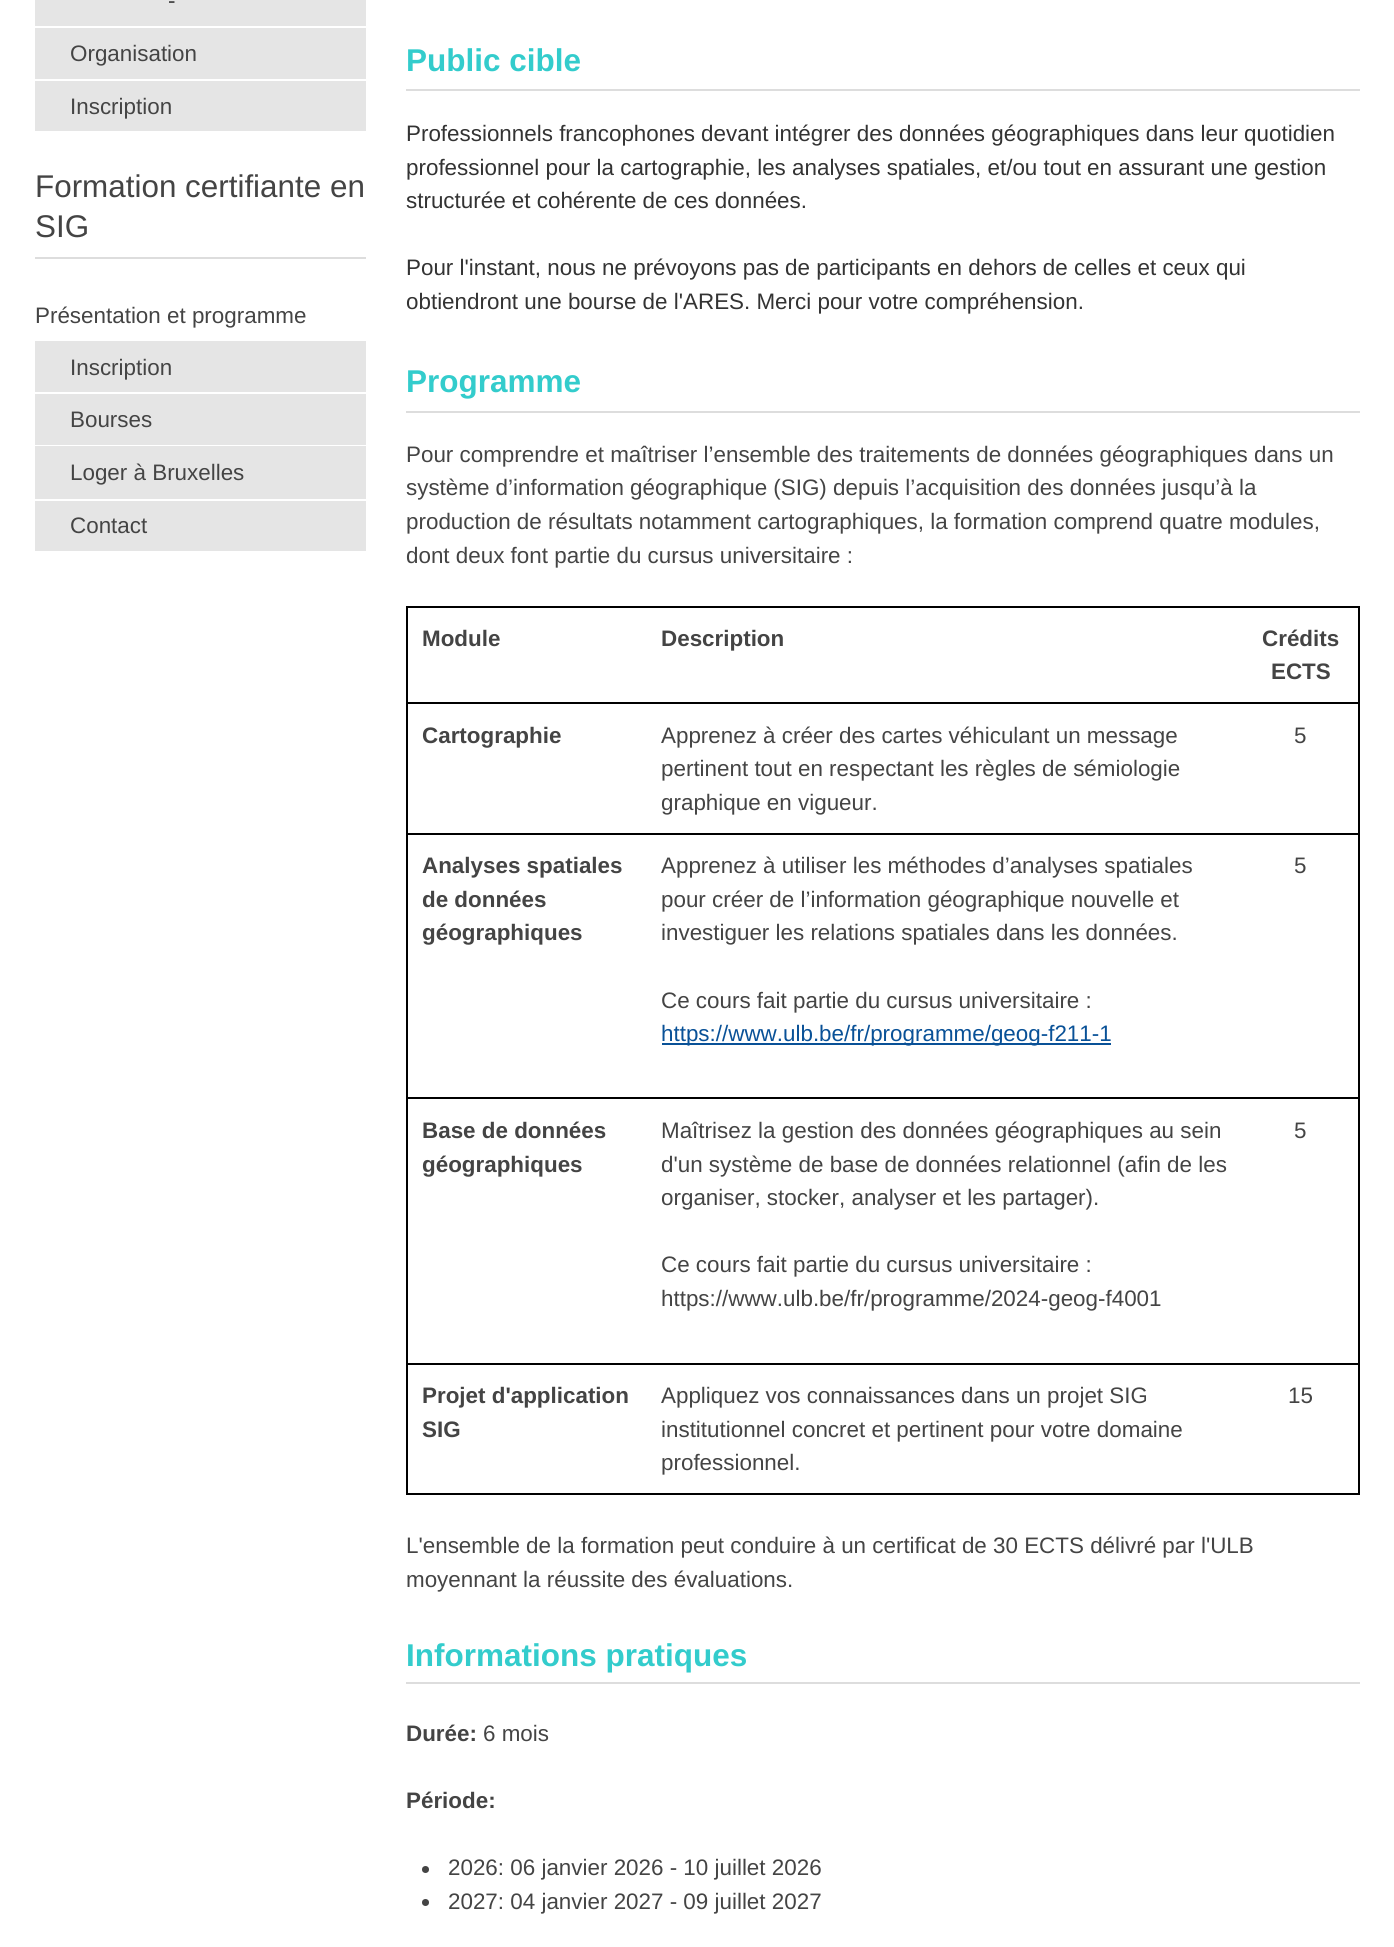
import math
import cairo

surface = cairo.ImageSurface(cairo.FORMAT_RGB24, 1394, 1947)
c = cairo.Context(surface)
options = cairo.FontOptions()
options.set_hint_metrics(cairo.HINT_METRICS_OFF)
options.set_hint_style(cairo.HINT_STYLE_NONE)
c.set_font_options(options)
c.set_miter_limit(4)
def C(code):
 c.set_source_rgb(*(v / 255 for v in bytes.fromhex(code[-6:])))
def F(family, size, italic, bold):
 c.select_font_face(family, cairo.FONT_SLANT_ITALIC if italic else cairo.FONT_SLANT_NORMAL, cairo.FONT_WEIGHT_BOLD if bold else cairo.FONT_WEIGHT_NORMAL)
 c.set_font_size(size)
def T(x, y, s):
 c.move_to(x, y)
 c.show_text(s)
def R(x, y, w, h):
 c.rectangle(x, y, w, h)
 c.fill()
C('ffffff')
c.paint()
C('e5e5e5')
R(35,0,331,26)
F('Liberation Sans',22.4,0,0)
C('444444')
T(168,8,'-')
C('e5e5e5')
R(35,28,331,51)
C('444444')
T(70,61,'Organisation')
C('e5e5e5')
R(35,81,331,50)
C('444444')
T(70,114,'Inscription')
C('dddddd')
R(35,257,331,2)
F('Liberation Sans',31.4,0,0)
C('444444')
T(35,197,'Formation certifiante en')
T(35,237,'SIG')
F('Liberation Sans',22.4,0,0)
T(35,323,'Présentation et programme')
C('e5e5e5')
R(35,341,331,51)
C('444444')
T(70,375,'Inscription')
C('e5e5e5')
R(35,394,331,51)
C('444444')
T(70,427,'Bourses')
C('e5e5e5')
R(35,446,331,53)
C('444444')
T(70,480,'Loger à Bruxelles')
C('e5e5e5')
R(35,501,331,50)
C('444444')
T(70,533,'Contact')
C('dddddd')
R(406,89,954,2)
F('Liberation Sans',31.5,0,1)
C('33cccc')
T(406,71,'Public cible')
F('Liberation Sans',22.4,0,0)
C('333333')
T(406,141,'Professionnels francophones devant intégrer des données géographiques dans leur quotidien')
T(406,175,'professionnel pour la cartographie, les analyses spatiales, et/ou tout en assurant une gestion')
T(406,208,'structurée et cohérente de ces données.')
T(406,275,'Pour l\'instant, nous ne prévoyons pas de participants en dehors de celles et ceux qui')
T(406,309,'obtiendront une bourse de l\'ARES. Merci pour votre compréhension.')
C('dddddd')
R(406,411,954,2)
F('Liberation Sans',31.5,0,1)
C('33cccc')
T(406,392,'Programme')
F('Liberation Sans',22.4,0,0)
C('444444')
T(406,462,'Pour comprendre et maîtriser l’ensemble des traitements de données géographiques dans un')
T(406,495,'système d’information géographique (SIG) depuis l’acquisition des données jusqu’à la')
T(406,529,'production de résultats notamment cartographiques, la formation comprend quatre modules,')
T(406,563,'dont deux font partie du cursus universitaire :')
C('000000')
R(406,606,954,2)
R(1358,606,2,889)
R(406,1493,954,2)
R(406,606,2,889)
F('Liberation Sans',22.4,0,1)
C('444444')
T(422,646,'Module')
T(661,646,'Description')
T(1262,646,'Crédits')
T(1271,679,'ECTS')
T(422,743,'Cartographie')
F('Liberation Sans',22.4,0,0)
T(661,743,'Apprenez à créer des cartes véhiculant un message')
T(661,776,'pertinent tout en respectant les règles de sémiologie')
T(661,810,'graphique en vigueur.')
C('000000')
R(406,702,954,2)
C('444444')
T(1294,743,'5')
F('Liberation Sans',22.4,0,1)
T(422,873,'Analyses spatiales')
T(422,907,'de données')
T(422,940,'géographiques')
F('Liberation Sans',22.4,0,0)
T(661,873,'Apprenez à utiliser les méthodes d’analyses spatiales')
T(661,907,'pour créer de l’information géographique nouvelle et')
T(661,940,'investiguer les relations spatiales dans les données.')
T(661,1008,'Ce cours fait partie du cursus universitaire :')
C('095197')
R(662,1043,449,2)
T(661,1041,'https://www.ulb.be/fr/programme/geog-f211-1')
C('000000')
R(406,833,954,2)
C('444444')
T(1294,873,'5')
F('Liberation Sans',22.4,0,1)
T(422,1138,'Base de données')
T(422,1172,'géographiques')
F('Liberation Sans',22.4,0,0)
T(661,1138,'Maîtrisez la gestion des données géographiques au sein')
T(661,1172,'d\'un système de base de données relationnel (afin de les')
T(661,1205,'organiser, stocker, analyser et les partager).')
T(661,1272,'Ce cours fait partie du cursus universitaire :')
T(661,1306,'https://www.ulb.be/fr/programme/2024-geog-f4001')
C('000000')
R(406,1097,954,2)
C('444444')
T(1294,1138,'5')
F('Liberation Sans',22.4,0,1)
T(422,1403,'Projet d\'application')
T(422,1437,'SIG')
F('Liberation Sans',22.4,0,0)
T(661,1403,'Appliquez vos connaissances dans un projet SIG')
T(661,1437,'institutionnel concret et pertinent pour votre domaine')
T(661,1470,'professionnel.')
C('000000')
R(406,1363,954,2)
C('444444')
T(1288,1403,'15')
T(406,1553,'L\'ensemble de la formation peut conduire à un certificat de 30 ECTS délivré par l\'ULB')
T(406,1587,'moyennant la réussite des évaluations.')
C('dddddd')
R(406,1682,954,2)
F('Liberation Sans',31.5,0,1)
C('33cccc')
T(406,1666,'Informations pratiques')
F('Liberation Sans',22.4,0,1)
C('444444')
T(406,1741,'Durée:')
F('Liberation Sans',22.4,0,0)
T(483,1741,'6 mois')
F('Liberation Sans',22.4,0,1)
T(406,1808,'Période:')
c.new_path()
c.arc(425.5,1869.5,3.5,0,2 * math.pi)
c.fill()
F('Liberation Sans',22.4,0,0)
T(448,1875,'2026: 06 janvier 2026 - 10 juillet 2026')
c.new_path()
c.arc(425.5,1902.5,3.5,0,2 * math.pi)
c.fill()
T(448,1909,'2027: 04 janvier 2027 - 09 juillet 2027')
surface.write_to_png('o.png')
